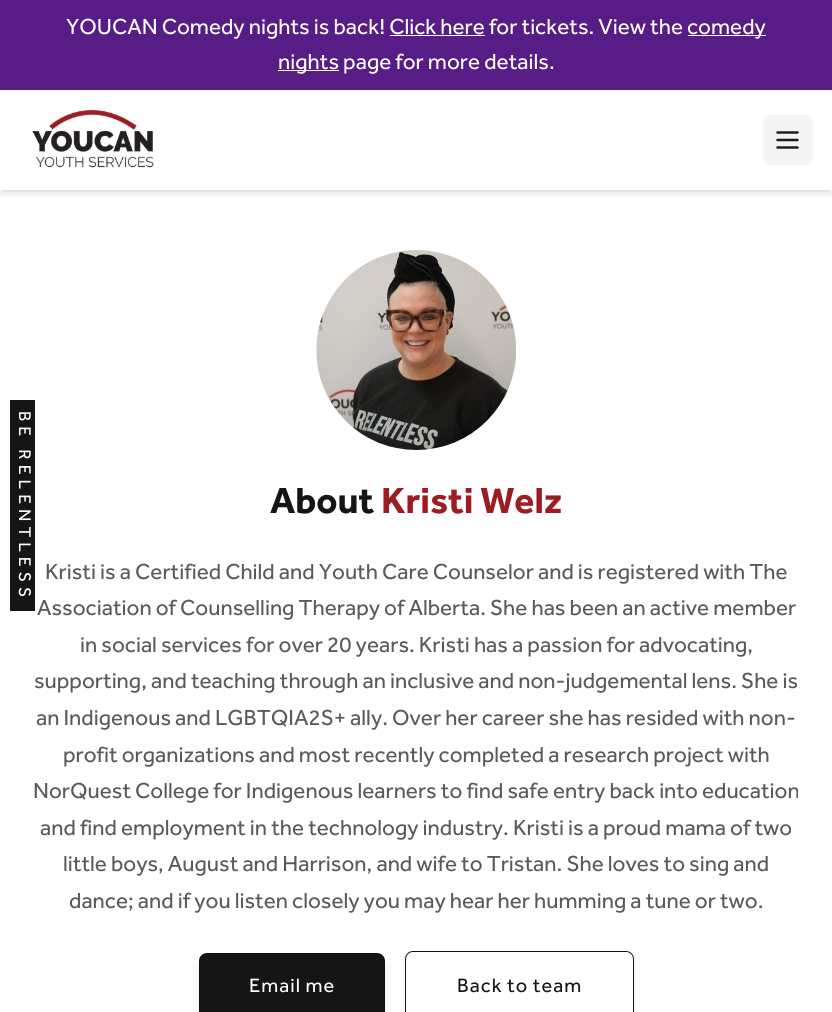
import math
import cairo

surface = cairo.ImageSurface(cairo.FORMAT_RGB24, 832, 1012)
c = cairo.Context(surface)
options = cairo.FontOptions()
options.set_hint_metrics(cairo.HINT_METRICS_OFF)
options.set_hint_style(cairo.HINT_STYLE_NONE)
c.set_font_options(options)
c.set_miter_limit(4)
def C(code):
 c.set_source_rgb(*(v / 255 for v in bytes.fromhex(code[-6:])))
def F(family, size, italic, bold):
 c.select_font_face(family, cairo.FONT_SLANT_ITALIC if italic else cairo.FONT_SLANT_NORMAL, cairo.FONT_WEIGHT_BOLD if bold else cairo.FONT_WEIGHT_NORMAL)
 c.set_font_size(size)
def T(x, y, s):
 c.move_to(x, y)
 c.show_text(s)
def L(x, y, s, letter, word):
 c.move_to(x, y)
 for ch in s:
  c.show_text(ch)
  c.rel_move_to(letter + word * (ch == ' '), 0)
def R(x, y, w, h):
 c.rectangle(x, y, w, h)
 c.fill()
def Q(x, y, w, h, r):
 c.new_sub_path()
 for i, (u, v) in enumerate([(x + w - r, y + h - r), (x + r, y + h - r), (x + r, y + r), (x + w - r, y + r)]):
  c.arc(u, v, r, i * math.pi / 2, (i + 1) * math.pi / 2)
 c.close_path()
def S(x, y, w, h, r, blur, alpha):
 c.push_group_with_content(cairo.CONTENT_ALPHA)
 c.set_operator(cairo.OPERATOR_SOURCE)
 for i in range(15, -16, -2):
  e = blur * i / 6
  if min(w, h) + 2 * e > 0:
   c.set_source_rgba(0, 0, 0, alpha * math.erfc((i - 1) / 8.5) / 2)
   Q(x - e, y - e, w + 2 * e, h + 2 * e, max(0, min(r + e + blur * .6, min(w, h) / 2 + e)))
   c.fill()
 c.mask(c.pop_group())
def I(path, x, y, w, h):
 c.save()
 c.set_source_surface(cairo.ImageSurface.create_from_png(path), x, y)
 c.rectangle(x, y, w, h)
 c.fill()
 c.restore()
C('ffffff')
c.paint()
C('581c87')
R(0,0,832,90)
F('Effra',22.5,0,0)
C('ffffff')
T(66,34,'YOUCAN Comedy nights is back! Click here for tickets. View the')
R(688,35,78,1)
T(687,34,'comedy')
R(390,35,95,1)
R(278,70,61,1)
T(278,69,'nights page for more details.')
c.save()
c.rectangle(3,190,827,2)
c.clip()
C('000000')
S(3,95,827,95,0,2.5,.1)
c.restore()
c.save()
c.rectangle(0,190,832,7)
c.clip()
C('000000')
S(1,96,830,98,0,4,.1)
c.restore()
I('1.png',32,110,122,58)
C('f3f4f6')
Q(763,115,50,50,8)
c.fill()
c.new_path()
c.move_to(777.5,132.5)
c.line_to(797.5,132.5)
c.move_to(777.5,140)
c.line_to(797.5,140)
c.move_to(777.5,147.5)
c.line_to(797.5,147.5)
C('1c1c1c')
c.set_line_width(2.5)
c.set_line_cap(cairo.LINE_CAP_ROUND)
c.set_line_join(cairo.LINE_JOIN_ROUND)
c.stroke()
C('151515')
R(10,400,25,211)
F('Effra',17.5,0,0)
C('ffffff')
c.save()
c.translate(19,411)
c.rotate(90 * math.pi / 180)
L(0,0,'BE RELENTLESS',5,0)
c.restore()
I('2.png',316,250,201,200)
F('Effra',37.5,0,1)
C('151515')
T(270,513,'About')
C('9c1c22')
T(381,513,'Kristi Welz')
F('Effra',22.5,0,0)
C('5a5a5a')
T(45,579,'Kristi is a Certified Child and Youth Care Counselor and is registered with The')
T(37,615,'Association of Counselling Therapy of Alberta. She has been an active member')
T(80,652,'in social services for over 20 years. Kristi has a passion for advocating,')
T(34,688,'supporting, and teaching through an inclusive and non-judgemental lens. She is')
T(36,725,'an Indigenous and LGBTQIA2S+ ally. Over her career she has resided with non-')
T(63,762,'profit organizations and most recently completed a research project with')
T(33,798,'NorQuest College for Indigenous learners to find safe entry back into education')
T(40,835,'and find employment in the technology industry. Kristi is a proud mama of two')
T(63,871,'little boys, August and Harrison, and wife to Tristan. She loves to sing and')
T(69,908,'dance; and if you listen closely you may hear her humming a tune or two.')
C('000000')
S(200,959,184,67,6,4,.1)
C('151515')
Q(199,953,186,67,8)
c.fill()
F('Effra',20,0,0)
C('ffffff')
L(249,992,'Email me',1,0)
C('000000')
S(406,958,227,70,6,4,.1)
C('ffffff')
Q(405.5,951.5,228,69,7.5)
c.fill_preserve()
C('151515')
c.set_line_width(1)
c.set_line_cap(cairo.LINE_CAP_BUTT)
c.set_line_join(cairo.LINE_JOIN_MITER)
c.stroke()
L(457,992,'Back to team',1,0)
surface.write_to_png('o.png')
